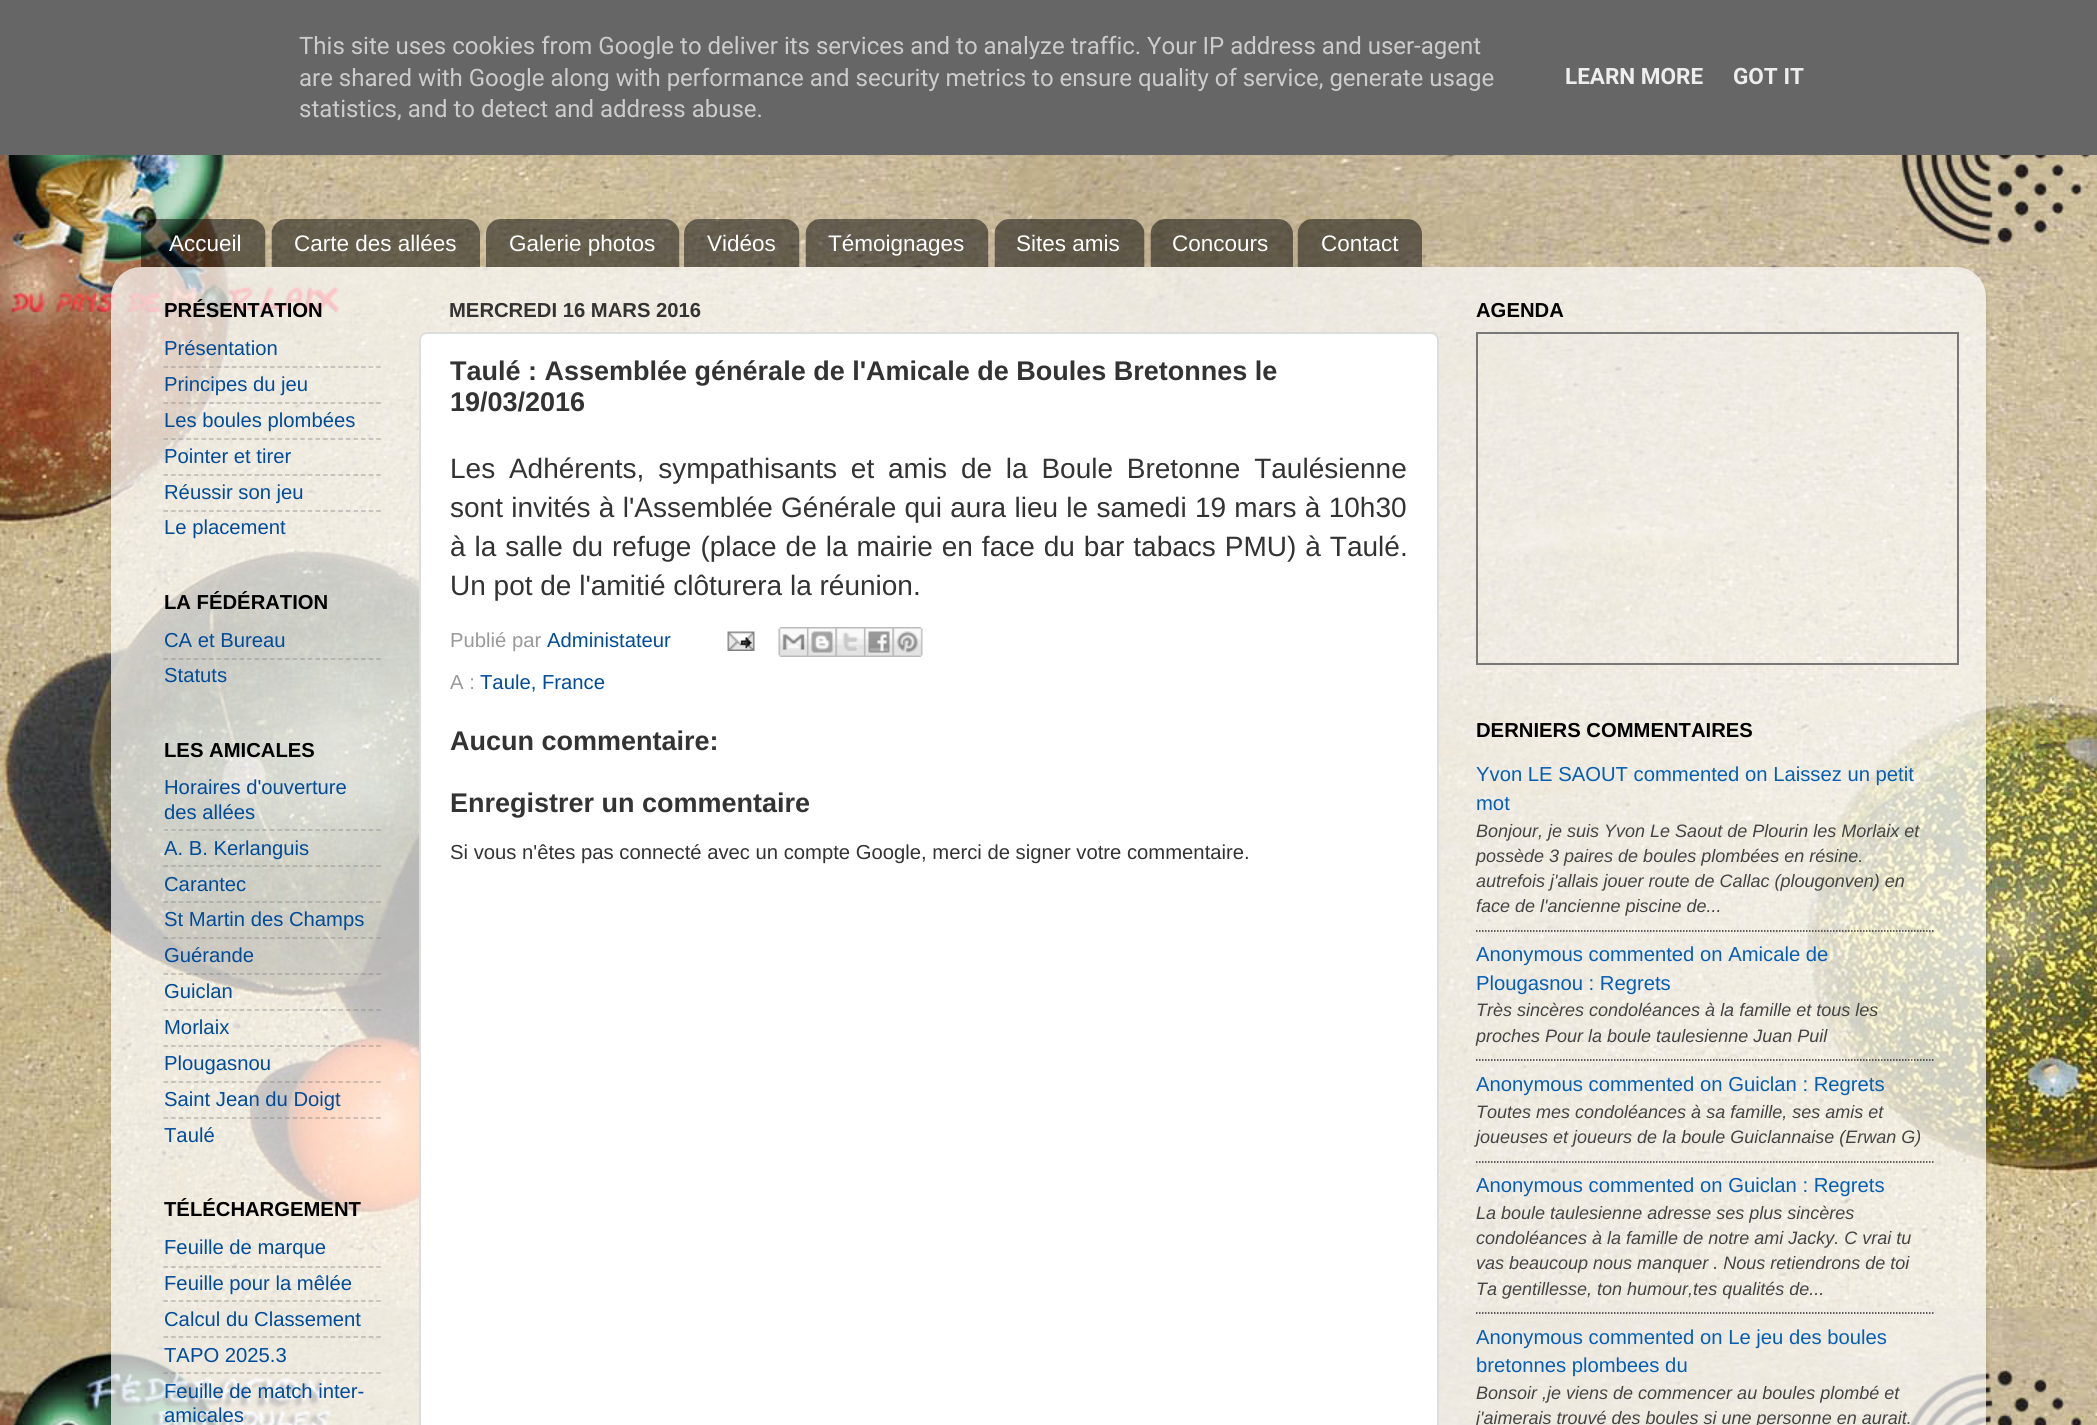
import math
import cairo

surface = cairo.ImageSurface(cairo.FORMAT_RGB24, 2097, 1425)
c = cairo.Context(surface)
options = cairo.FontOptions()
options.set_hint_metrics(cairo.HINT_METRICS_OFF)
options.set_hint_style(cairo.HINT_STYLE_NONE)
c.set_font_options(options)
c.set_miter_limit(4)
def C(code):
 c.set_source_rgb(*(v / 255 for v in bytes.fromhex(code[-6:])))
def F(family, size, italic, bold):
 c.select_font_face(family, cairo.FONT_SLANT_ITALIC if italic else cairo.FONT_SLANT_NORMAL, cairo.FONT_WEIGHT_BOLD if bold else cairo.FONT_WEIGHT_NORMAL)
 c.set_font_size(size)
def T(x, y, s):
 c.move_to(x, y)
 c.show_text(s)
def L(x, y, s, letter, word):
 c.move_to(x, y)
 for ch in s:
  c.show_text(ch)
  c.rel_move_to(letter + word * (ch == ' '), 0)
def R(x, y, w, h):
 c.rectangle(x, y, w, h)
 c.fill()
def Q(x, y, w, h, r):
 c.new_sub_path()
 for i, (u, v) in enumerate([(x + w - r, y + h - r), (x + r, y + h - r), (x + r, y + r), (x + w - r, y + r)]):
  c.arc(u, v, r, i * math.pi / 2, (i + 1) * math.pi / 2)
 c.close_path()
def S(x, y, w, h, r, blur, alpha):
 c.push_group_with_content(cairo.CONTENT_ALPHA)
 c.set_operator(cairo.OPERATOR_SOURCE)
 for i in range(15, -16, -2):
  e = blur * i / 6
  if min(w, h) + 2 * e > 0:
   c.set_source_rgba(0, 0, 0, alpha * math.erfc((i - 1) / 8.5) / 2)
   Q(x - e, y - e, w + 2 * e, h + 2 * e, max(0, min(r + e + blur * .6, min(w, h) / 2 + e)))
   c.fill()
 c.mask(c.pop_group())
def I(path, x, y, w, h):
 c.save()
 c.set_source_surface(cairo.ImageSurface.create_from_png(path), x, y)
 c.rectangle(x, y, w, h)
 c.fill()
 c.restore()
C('ffffff')
c.paint()
I('1.png',0,155,2097,1270)
C('666666')
R(0,0,2097,155)
F('Roboto',24,0,0)
C('cccccc')
T(299,54,'This site uses cookies from Google to deliver its services and to analyze traffic. Your IP address and user-agent')
T(299,86,'are shared with Google along with performance and security metrics to ensure quality of service, generate usage')
T(299,117,'statistics, and to detect and address abuse.')
F('Roboto',22.5,0,1)
C('eeeeee')
T(1565,84,'LEARN MORE')
T(1733,84,'GOT IT')
I('2.png',141,219,125,48)
F('Liberation Sans',22.5,0,0)
C('ffffff')
T(169,251,'Accueil')
I('3.png',271,219,209,48)
T(294,251,'Carte des allées')
I('4.png',486,219,194,48)
T(509,251,'Galerie photos')
I('5.png',684,219,116,48)
T(707,251,'Vidéos')
I('6.png',805,219,184,48)
T(828,251,'Témoignages')
I('7.png',994,219,151,48)
T(1016,251,'Sites amis')
I('8.png',1150,219,143,48)
T(1172,251,'Concours')
I('9.png',1297,219,125,48)
T(1321,251,'Contact')
c.save()
c.set_fill_rule(cairo.FILL_RULE_EVEN_ODD)
c.new_path()
c.move_to(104,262)
c.line_to(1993,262)
c.line_to(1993,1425)
c.line_to(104,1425)
c.close_path()
c.move_to(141,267)
c.line_to(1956,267)
c.curve_to(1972.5,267,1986,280.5,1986,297)
c.line_to(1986,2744)
c.line_to(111,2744)
c.line_to(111,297)
c.curve_to(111,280.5,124.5,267,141,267)
c.close_path()
c.clip()
C('000000')
S(111,269,1875,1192,30,2,.15)
c.restore()
I('10.png',111,267,1875,1158)
F('Liberation Sans',20.25,0,1)
C('000000')
T(164,317,'PRÉSENTATION')
F('Liberation Sans',20.25,0,0)
C('004c99')
T(164,355,'Présentation')
c.new_path()
c.move_to(163.5,367)
c.line_to(381,367)
c.set_source_rgba(0.502,0.502,0.502,0.5)
c.set_line_width(1.5)
c.set_dash([4.5,3.1])
c.stroke()
C('004c99')
T(164,391,'Principes du jeu')
c.new_path()
c.move_to(163.5,403)
c.line_to(381,403)
c.set_source_rgba(0.502,0.502,0.502,0.5)
c.stroke()
C('004c99')
T(164,427,'Les boules plombées')
c.new_path()
c.move_to(163.5,439)
c.line_to(381,439)
c.set_source_rgba(0.502,0.502,0.502,0.5)
c.stroke()
C('004c99')
T(164,463,'Pointer et tirer')
c.new_path()
c.move_to(163.5,475)
c.line_to(381,475)
c.set_source_rgba(0.502,0.502,0.502,0.5)
c.stroke()
C('004c99')
T(164,499,'Réussir son jeu')
c.new_path()
c.move_to(163.5,511)
c.line_to(381,511)
c.set_source_rgba(0.502,0.502,0.502,0.5)
c.stroke()
C('004c99')
T(164,534,'Le placement')
F('Liberation Sans',20.25,0,1)
C('000000')
T(164,609,'LA FÉDÉRATION')
F('Liberation Sans',20.25,0,0)
C('004c99')
T(164,647,'CA et Bureau')
c.new_path()
c.move_to(163.5,659)
c.line_to(381,659)
c.set_source_rgba(0.502,0.502,0.502,0.5)
c.stroke()
C('004c99')
T(164,682,'Statuts')
F('Liberation Sans',20.25,0,1)
C('000000')
T(164,757,'LES AMICALES')
F('Liberation Sans',20.25,0,0)
C('004c99')
T(164,794,'Horaires d\'ouverture')
T(164,819,'des allées')
c.new_path()
c.move_to(163.5,830)
c.line_to(381,830)
c.set_source_rgba(0.502,0.502,0.502,0.5)
c.stroke()
C('004c99')
T(164,855,'A. B. Kerlanguis')
c.new_path()
c.move_to(163.5,866)
c.line_to(381,866)
c.set_source_rgba(0.502,0.502,0.502,0.5)
c.stroke()
C('004c99')
T(164,891,'Carantec')
c.new_path()
c.move_to(163.5,902)
c.line_to(381,902)
c.set_source_rgba(0.502,0.502,0.502,0.5)
c.stroke()
C('004c99')
T(164,926,'St Martin des Champs')
c.new_path()
c.move_to(163.5,938)
c.line_to(381,938)
c.set_source_rgba(0.502,0.502,0.502,0.5)
c.stroke()
C('004c99')
T(164,962,'Guérande')
c.new_path()
c.move_to(163.5,974)
c.line_to(381,974)
c.set_source_rgba(0.502,0.502,0.502,0.5)
c.stroke()
C('004c99')
T(164,998,'Guiclan')
c.new_path()
c.move_to(163.5,1010)
c.line_to(381,1010)
c.set_source_rgba(0.502,0.502,0.502,0.5)
c.stroke()
C('004c99')
T(164,1034,'Morlaix')
c.new_path()
c.move_to(163.5,1046)
c.line_to(381,1046)
c.set_source_rgba(0.502,0.502,0.502,0.5)
c.stroke()
C('004c99')
T(164,1070,'Plougasnou')
c.new_path()
c.move_to(163.5,1082)
c.line_to(381,1082)
c.set_source_rgba(0.502,0.502,0.502,0.5)
c.stroke()
C('004c99')
T(164,1106,'Saint Jean du Doigt')
c.new_path()
c.move_to(163.5,1118)
c.line_to(381,1118)
c.set_source_rgba(0.502,0.502,0.502,0.5)
c.stroke()
C('004c99')
T(164,1142,'Taulé')
F('Liberation Sans',20.25,0,1)
C('000000')
T(164,1216,'TÉLÉCHARGEMENT')
F('Liberation Sans',20.25,0,0)
C('004c99')
T(164,1254,'Feuille de marque')
c.new_path()
c.move_to(163.5,1267)
c.line_to(381,1267)
c.set_source_rgba(0.502,0.502,0.502,0.5)
c.stroke()
C('004c99')
T(164,1290,'Feuille pour la mêlée')
c.new_path()
c.move_to(163.5,1301)
c.line_to(381,1301)
c.set_source_rgba(0.502,0.502,0.502,0.5)
c.stroke()
C('004c99')
T(164,1326,'Calcul du Classement')
c.new_path()
c.move_to(163.5,1337)
c.line_to(381,1337)
c.set_source_rgba(0.502,0.502,0.502,0.5)
c.stroke()
C('004c99')
T(164,1362,'TAPO 2025.3')
c.new_path()
c.move_to(163.5,1373)
c.line_to(381,1373)
c.set_source_rgba(0.502,0.502,0.502,0.5)
c.stroke()
C('004c99')
T(164,1398,'Feuille de match inter-')
T(164,1422,'amicales')
F('Liberation Sans',20.25,0,1)
C('333333')
T(449,317,'MERCREDI 16 MARS 2016')
C('ffffff')
Q(420,333,1018,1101,7)
c.fill_preserve()
C('dddddd')
c.set_line_width(2)
c.set_dash([])
c.stroke()
F('Liberation Sans',27,0,1)
C('333333')
T(450,380,'Taulé : Assemblée générale de l\'Amicale de Boules Bretonnes le')
T(450,411,'19/03/2016')
F('Liberation Sans',28,0,0)
L(450,478,'Les Adhérents, sympathisants et amis de la Boule Bretonne Taulésienne',0,6)
L(450,517,'sont invités à l\'Assemblée Générale qui aura lieu le samedi 19 mars à 10h30',0,.5)
L(450,556,'à la salle du refuge (place de la mairie en face du bar tabacs PMU) à Taulé.',0,1.2)
T(450,595,'Un pot de l\'amitié clôturera la réunion.')
F('Liberation Sans',20.25,0,0)
C('999999')
T(450,647,'Publié par')
C('004c99')
T(547,647,'Administateur')
I('11.png',727,631,28,20)
I('12.png',778,627,29,30)
I('13.png',807,627,29,30)
I('14.png',835,627,29,30)
I('15.png',864,627,29,30)
I('16.png',892,627,31,30)
C('999999')
T(450,689,'A :')
C('004c99')
T(480,689,'Taule, France')
F('Liberation Sans',27,0,1)
C('333333')
T(450,750,'Aucun commentaire:')
T(450,812,'Enregistrer un commentaire')
F('Liberation Sans',20.25,0,0)
T(450,859,'Si vous n\'êtes pas connecté avec un compte Google, merci de signer votre commentaire.')
F('Liberation Sans',20.25,0,1)
C('000000')
T(1476,317,'AGENDA')
c.rectangle(1477,333,481,331)
C('777777')
c.stroke()
C('000000')
T(1476,737,'DERNIERS COMMENTAIRES')
c.new_path()
c.move_to(1476,931)
c.line_to(1933.5,931)
C('333333')
c.set_line_width(1.5)
c.set_dash([1.5,1.5])
c.stroke()
F('Liberation Sans',20.25,0,0)
C('045fb4')
T(1476,781,'Yvon LE SAOUT commented on Laissez un petit')
T(1476,810,'mot')
F('Liberation Sans',18,1,0)
C('444444')
T(1476,837,'Bonjour, je suis Yvon Le Saout de Plourin les Morlaix et')
T(1476,862,'possède 3 paires de boules plombées en résine.')
T(1476,887,'autrefois j\'allais jouer route de Callac (plougonven) en')
T(1476,912,'face de l\'ancienne piscine de...')
c.new_path()
c.move_to(1476,1060)
c.line_to(1933.5,1060)
C('333333')
c.stroke()
F('Liberation Sans',20.25,0,0)
C('045fb4')
T(1476,961,'Anonymous commented on Amicale de')
T(1476,990,'Plougasnou : Regrets')
F('Liberation Sans',18,1,0)
C('444444')
T(1476,1016,'Très sincères condoléances à la famille et tous les')
T(1476,1042,'proches Pour la boule taulesienne Juan Puil')
c.new_path()
c.move_to(1476,1162)
c.line_to(1933.5,1162)
C('333333')
c.stroke()
F('Liberation Sans',20.25,0,0)
C('045fb4')
T(1476,1091,'Anonymous commented on Guiclan : Regrets')
F('Liberation Sans',18,1,0)
C('444444')
T(1476,1118,'Toutes mes condoléances à sa famille, ses amis et')
T(1476,1143,'joueuses et joueurs de la boule Guiclannaise (Erwan G)')
c.new_path()
c.move_to(1476,1313)
c.line_to(1933.5,1313)
C('333333')
c.stroke()
F('Liberation Sans',20.25,0,0)
C('045fb4')
T(1476,1192,'Anonymous commented on Guiclan : Regrets')
F('Liberation Sans',18,1,0)
C('444444')
T(1476,1219,'La boule taulesienne adresse ses plus sincères')
T(1476,1244,'condoléances à la famille de notre ami Jacky. C vrai tu')
T(1476,1269,'vas beaucoup nous manquer . Nous retiendrons de toi')
T(1476,1295,'Ta gentillesse, ton humour,tes qualités de...')
F('Liberation Sans',20.25,0,0)
C('045fb4')
T(1476,1344,'Anonymous commented on Le jeu des boules')
T(1476,1372,'bretonnes plombees du')
F('Liberation Sans',18,1,0)
C('444444')
T(1476,1399,'Bonsoir ,je viens de commencer au boules plombé et')
T(1476,1424,'j\'aimerais trouvé des boules si une personne en aurait.')
surface.write_to_png('o.png')
